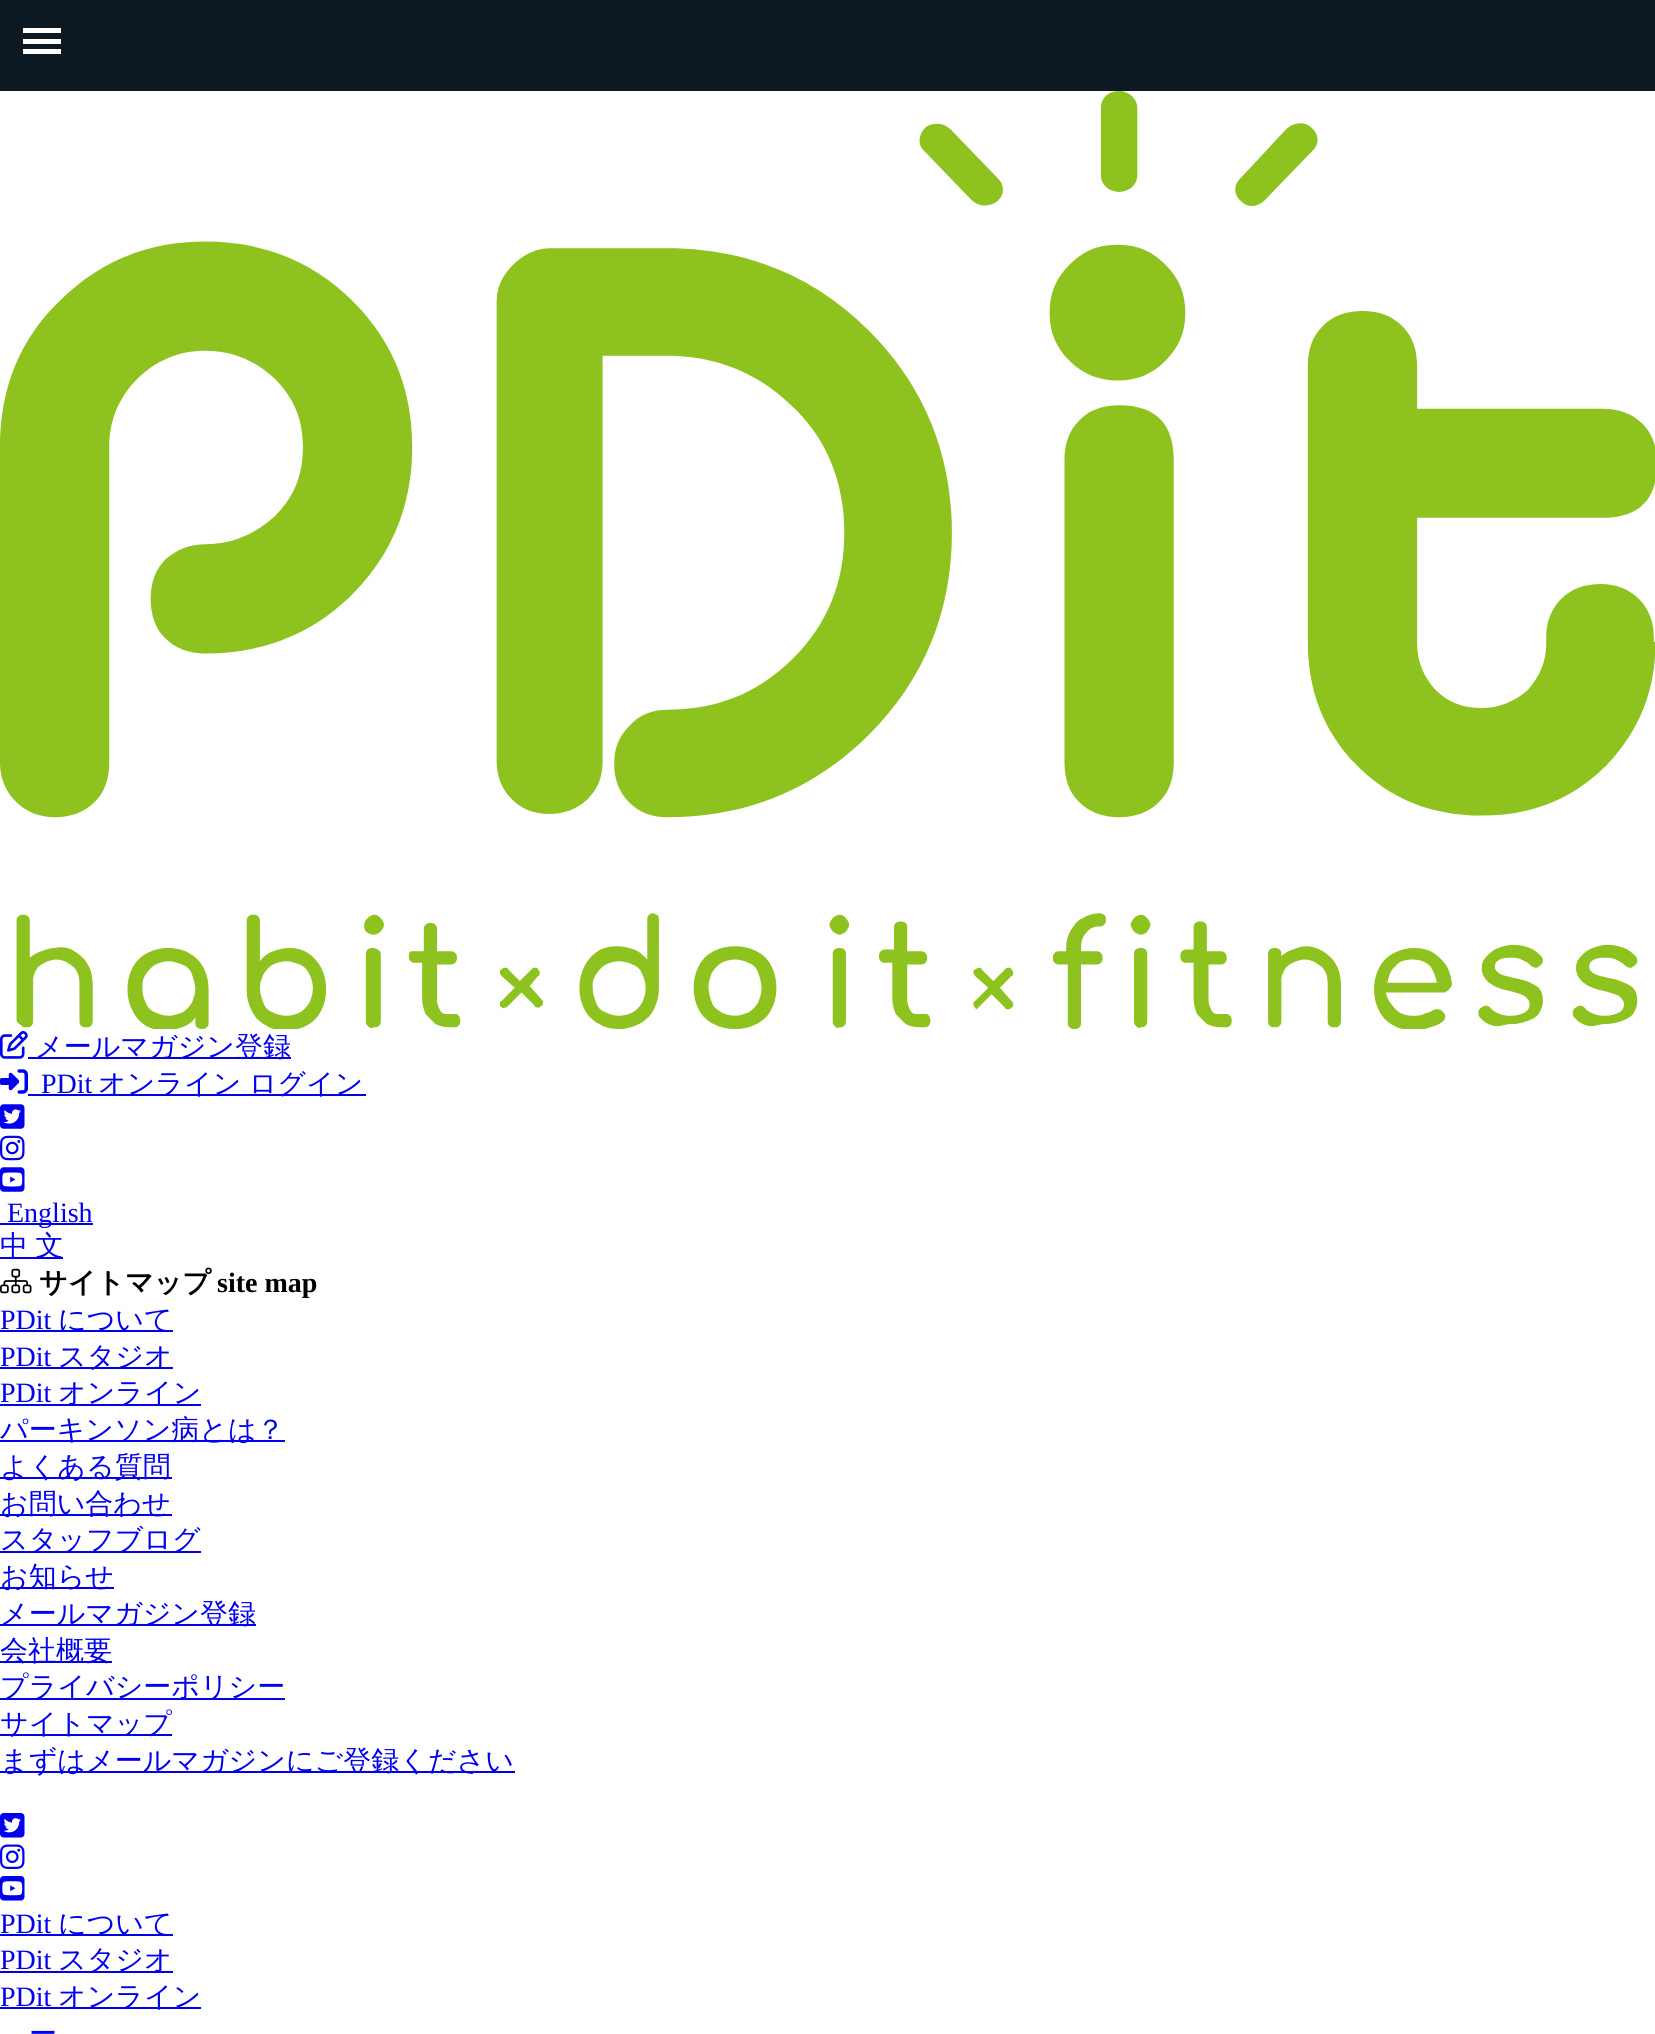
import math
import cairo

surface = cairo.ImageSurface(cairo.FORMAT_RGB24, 1655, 2034)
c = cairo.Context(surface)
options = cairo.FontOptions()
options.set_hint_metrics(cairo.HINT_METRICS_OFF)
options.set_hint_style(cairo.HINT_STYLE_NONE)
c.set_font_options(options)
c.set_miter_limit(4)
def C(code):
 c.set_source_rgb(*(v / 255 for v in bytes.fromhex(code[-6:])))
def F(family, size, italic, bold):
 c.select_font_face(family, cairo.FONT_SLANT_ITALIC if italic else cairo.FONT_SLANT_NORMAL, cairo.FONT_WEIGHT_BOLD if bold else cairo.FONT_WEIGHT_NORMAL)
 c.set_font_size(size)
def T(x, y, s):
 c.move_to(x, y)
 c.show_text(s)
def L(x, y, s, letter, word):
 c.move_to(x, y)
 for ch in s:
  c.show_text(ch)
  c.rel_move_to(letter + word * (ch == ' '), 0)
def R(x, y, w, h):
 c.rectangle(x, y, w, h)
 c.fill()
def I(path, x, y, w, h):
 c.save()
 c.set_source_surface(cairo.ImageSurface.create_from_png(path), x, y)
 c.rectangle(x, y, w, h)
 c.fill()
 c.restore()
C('ffffff')
c.paint()
C('0c1923')
R(0,0,1655,91)
C('ffffff')
R(23,28,38,5)
R(23,39,38,5)
R(23,49,38,5)
I('1.png',0,91,1655,938)
I('2.png',0,1031,28,28)
C('0000ee')
R(28,1057,263,2)
F('WenQuanYi Zen Hei Medium',28,0,0)
T(35,1056,'メールマガジン登録')
I('3.png',0,1069,28,25)
F('Liberation Serif',28,0,0)
T(41,1093,'PDit')
R(28,1094,338,2)
F('WenQuanYi Zen Hei Medium',28,0,0)
L(98,1093,'オンライン ログイン',0,-1)
I('4.png',0,1104,25,25)
I('5.png',0,1135,25,26)
I('6.png',0,1167,25,25)
R(0,1223,93,2)
F('Liberation Serif',28,0,0)
T(7,1222,'English')
R(0,1257,63,2)
F('WenQuanYi Zen Hei Medium',28,0,0)
L(0,1255,'中 文',0,-1)
I('7.png',0,1268,32,26)
F('WenQuanYi Zen Hei',28,0,1)
C('000000')
T(39,1292,'サイトマップ')
F('Liberation Serif',28,0,1)
T(217,1292,'site map')
F('Liberation Serif',28,0,0)
C('0000ee')
T(0,1329,'PDit')
R(0,1330,173,2)
F('WenQuanYi Zen Hei Medium',28,0,0)
T(58,1329,'について')
F('Liberation Serif',28,0,0)
T(0,1366,'PDit')
R(0,1367,173,2)
F('WenQuanYi Zen Hei Medium',28,0,0)
T(58,1366,'スタジオ')
F('Liberation Serif',28,0,0)
T(0,1402,'PDit')
R(0,1404,201,2)
F('WenQuanYi Zen Hei Medium',28,0,0)
T(58,1402,'オンライン')
R(0,1440,285,2)
T(0,1439,'パーキンソン病とは？')
R(0,1477,172,2)
T(0,1476,'よくある質問')
R(0,1514,172,2)
T(0,1513,'お問い合わせ')
R(0,1551,201,2)
T(0,1549,'スタッフブログ')
R(0,1587,114,2)
T(0,1586,'お知らせ')
R(0,1624,256,2)
T(0,1623,'メールマガジン登録')
R(0,1661,112,2)
T(0,1660,'会社概要')
R(0,1698,285,2)
T(0,1696,'プライバシーポリシー')
R(0,1734,172,2)
T(0,1733,'サイトマップ')
R(0,1771,515,2)
T(0,1770,'まずはメールマガジンにご登録ください')
I('8.png',0,1813,25,25)
I('9.png',0,1844,25,25)
I('10.png',0,1876,25,25)
F('Liberation Serif',28,0,0)
T(0,1933,'PDit')
R(0,1934,173,2)
F('WenQuanYi Zen Hei Medium',28,0,0)
T(58,1933,'について')
F('Liberation Serif',28,0,0)
T(0,1969,'PDit')
R(0,1971,173,2)
F('WenQuanYi Zen Hei Medium',28,0,0)
T(58,1969,'スタジオ')
F('Liberation Serif',28,0,0)
T(0,2006,'PDit')
R(0,2007,201,2)
F('WenQuanYi Zen Hei Medium',28,0,0)
T(58,2006,'オンライン')
T(29,2043,'ー')
surface.write_to_png('o.png')
